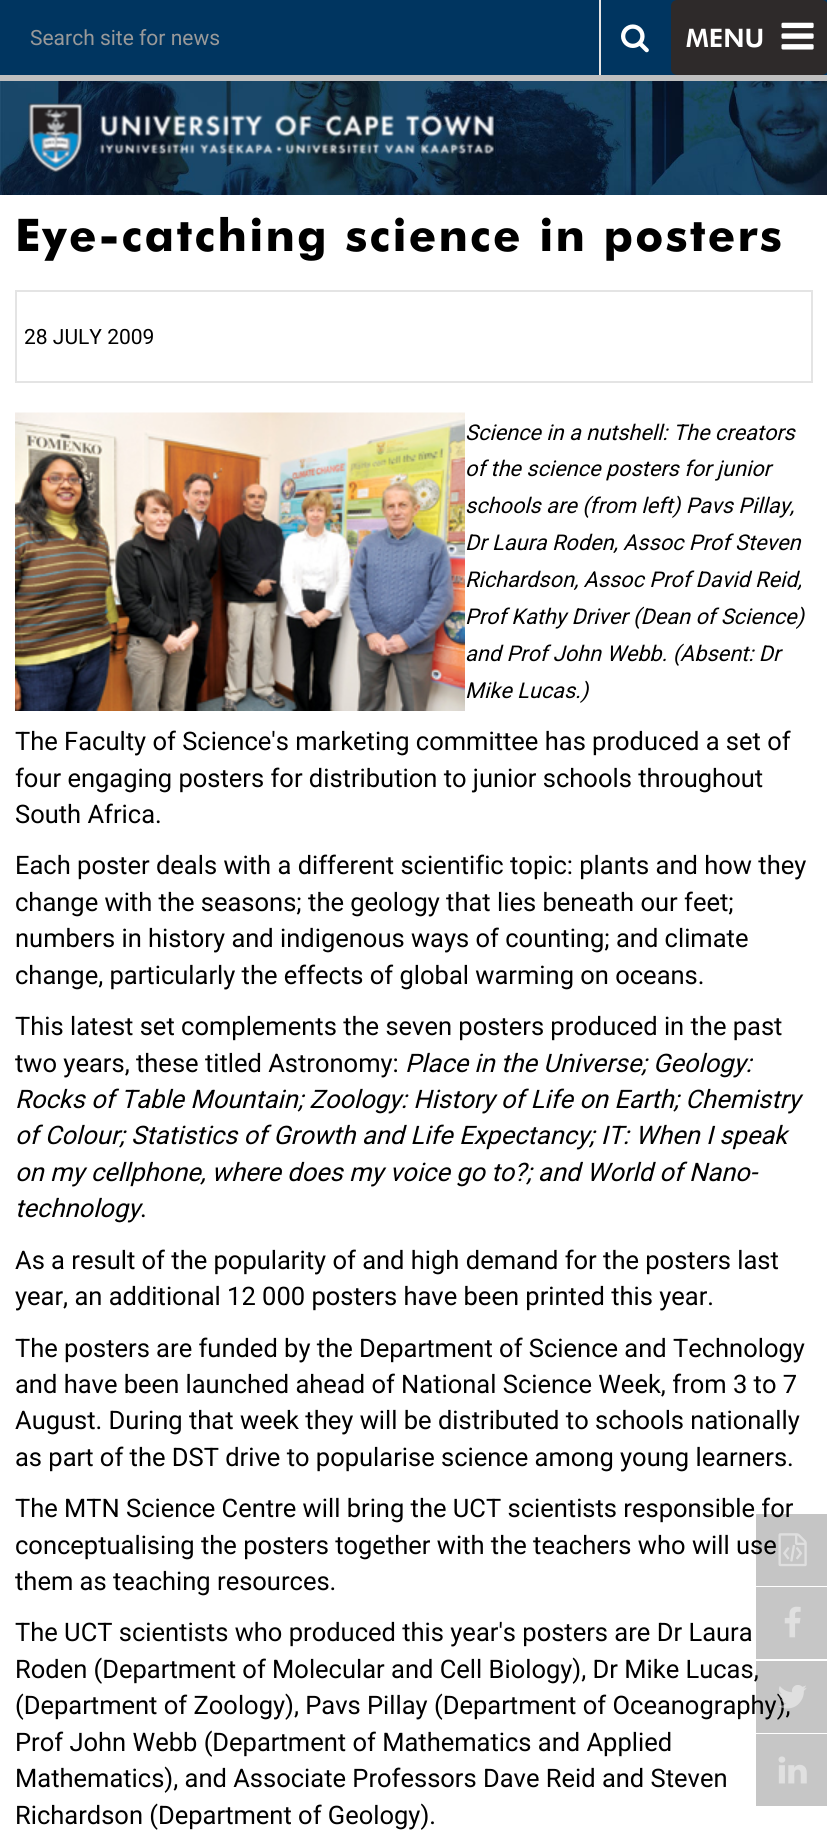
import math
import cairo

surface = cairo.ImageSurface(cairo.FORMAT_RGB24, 827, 1835)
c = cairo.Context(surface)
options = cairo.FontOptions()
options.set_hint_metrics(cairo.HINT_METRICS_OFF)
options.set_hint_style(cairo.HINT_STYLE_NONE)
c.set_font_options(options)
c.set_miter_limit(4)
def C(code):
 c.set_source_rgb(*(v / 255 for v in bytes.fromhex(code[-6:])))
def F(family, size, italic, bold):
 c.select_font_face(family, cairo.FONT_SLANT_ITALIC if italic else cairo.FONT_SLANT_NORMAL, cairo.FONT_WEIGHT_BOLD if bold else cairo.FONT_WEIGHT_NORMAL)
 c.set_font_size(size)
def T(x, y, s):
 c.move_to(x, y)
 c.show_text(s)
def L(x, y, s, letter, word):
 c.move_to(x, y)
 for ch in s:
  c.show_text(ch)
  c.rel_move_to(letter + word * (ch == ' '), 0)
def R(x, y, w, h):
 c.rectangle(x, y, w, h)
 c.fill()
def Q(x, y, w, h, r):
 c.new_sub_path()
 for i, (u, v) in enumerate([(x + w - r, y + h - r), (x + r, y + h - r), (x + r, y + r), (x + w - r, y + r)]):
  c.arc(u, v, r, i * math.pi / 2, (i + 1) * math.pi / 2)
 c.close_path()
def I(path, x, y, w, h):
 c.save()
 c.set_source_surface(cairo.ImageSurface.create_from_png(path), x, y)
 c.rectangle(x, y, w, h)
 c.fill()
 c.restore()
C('ffffff')
c.paint()
C('003560')
R(0,0,827,75)
F('Roboto',21,0,0)
C('999999')
T(30,45,'Search site for news')
C('e7e5e5')
R(599,0,2,75)
I('1.png',621,24,28,29)
C('2e2a2a')
Q(671,0,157,75,6)
c.fill()
F('Futura Black',25.5,0,0)
C('ffffff')
T(686,47,'MENU')
I('2.png',781,22,33,28)
C('bfbfbf')
R(0,75,827,6)
I('3.png',0,81,827,114)
I('4.png',28,103,466,70)
F('Futura',45,0,1)
C('000000')
L(15,251,'Eye-catching science in posters',2.25,0)
c.rectangle(16,291,796,91)
C('e4e4e4')
c.stroke()
F('Roboto',21,0,0)
C('000000')
T(24,344,'28 JULY 2009')
I('5.png',15,412,450,299)
F('Roboto',21.7,1,0)
T(465,440,'Science in a nutshell: The creators')
T(465,476,'of the science posters for junior')
T(465,513,'schools are (from left) Pavs Pillay,')
T(465,550,'Dr Laura Roden, Assoc Prof Steven')
T(465,587,'Richardson, Assoc Prof David Reid,')
T(465,624,'Prof Kathy Driver (Dean of Science)')
T(465,661,'and Prof John Webb. (Absent: Dr')
T(465,698,'Mike Lucas.)')
F('Roboto',25.5,0,0)
T(15,750,'The Faculty of Science\'s marketing committee has produced a set of')
T(15,787,'four engaging posters for distribution to junior schools throughout')
T(15,823,'South Africa.')
T(15,874,'Each poster deals with a different scientific topic: plants and how they')
T(15,911,'change with the seasons; the geology that lies beneath our feet;')
T(15,947,'numbers in history and indigenous ways of counting; and climate')
T(15,984,'change, particularly the effects of global warming on oceans.')
T(15,1035,'This latest set complements the seven posters produced in the past')
T(15,1072,'two years, these titled Astronomy:')
F('Roboto',25.5,1,0)
T(405,1072,'Place in the Universe; Geology:')
T(15,1108,'Rocks of Table Mountain; Zoology: History of Life on Earth; Chemistry')
T(15,1144,'of Colour; Statistics of Growth and Life Expectancy; IT: When I speak')
T(15,1181,'on my cellphone, where does my voice go to?; and World of Nano-')
T(15,1217,'technology')
F('Roboto',25.5,0,0)
T(140,1217,'.')
T(15,1269,'As a result of the popularity of and high demand for the posters last')
T(15,1305,'year, an additional 12 000 posters have been printed this year.')
T(15,1357,'The posters are funded by the Department of Science and Technology')
T(15,1393,'and have been launched ahead of National Science Week, from 3 to 7')
T(15,1429,'August. During that week they will be distributed to schools nationally')
T(15,1466,'as part of the DST drive to popularise science among young learners.')
T(15,1517,'The MTN Science Centre will bring the UCT scientists responsible for')
T(15,1554,'conceptualising the posters together with the teachers who will use')
T(15,1590,'them as teaching resources.')
T(15,1641,'The UCT scientists who produced this year\'s posters are Dr Laura')
T(15,1678,'Roden (Department of Molecular and Cell Biology), Dr Mike Lucas,')
T(15,1714,'(Department of Zoology), Pavs Pillay (Department of Oceanography),')
T(15,1751,'Prof John Webb (Department of Mathematics and Applied')
T(15,1787,'Mathematics), and Associate Professors Dave Reid and Steven')
T(15,1824,'Richardson (Department of Geology).')
c.set_source_rgba(0,0,0,0.23)
R(756,1514,71,72)
I('6.png',778,1533,29,34)
C('c6c6c6')
R(756,1587,71,72)
I('7.png',784,1606,17,32)
c.set_source_rgba(0,0,0,0.23)
R(756,1661,71,72)
I('8.png',778,1685,29,24)
C('c6c6c6')
R(756,1734,71,72)
I('9.png',778,1756,29,28)
surface.write_to_png('o.png')
